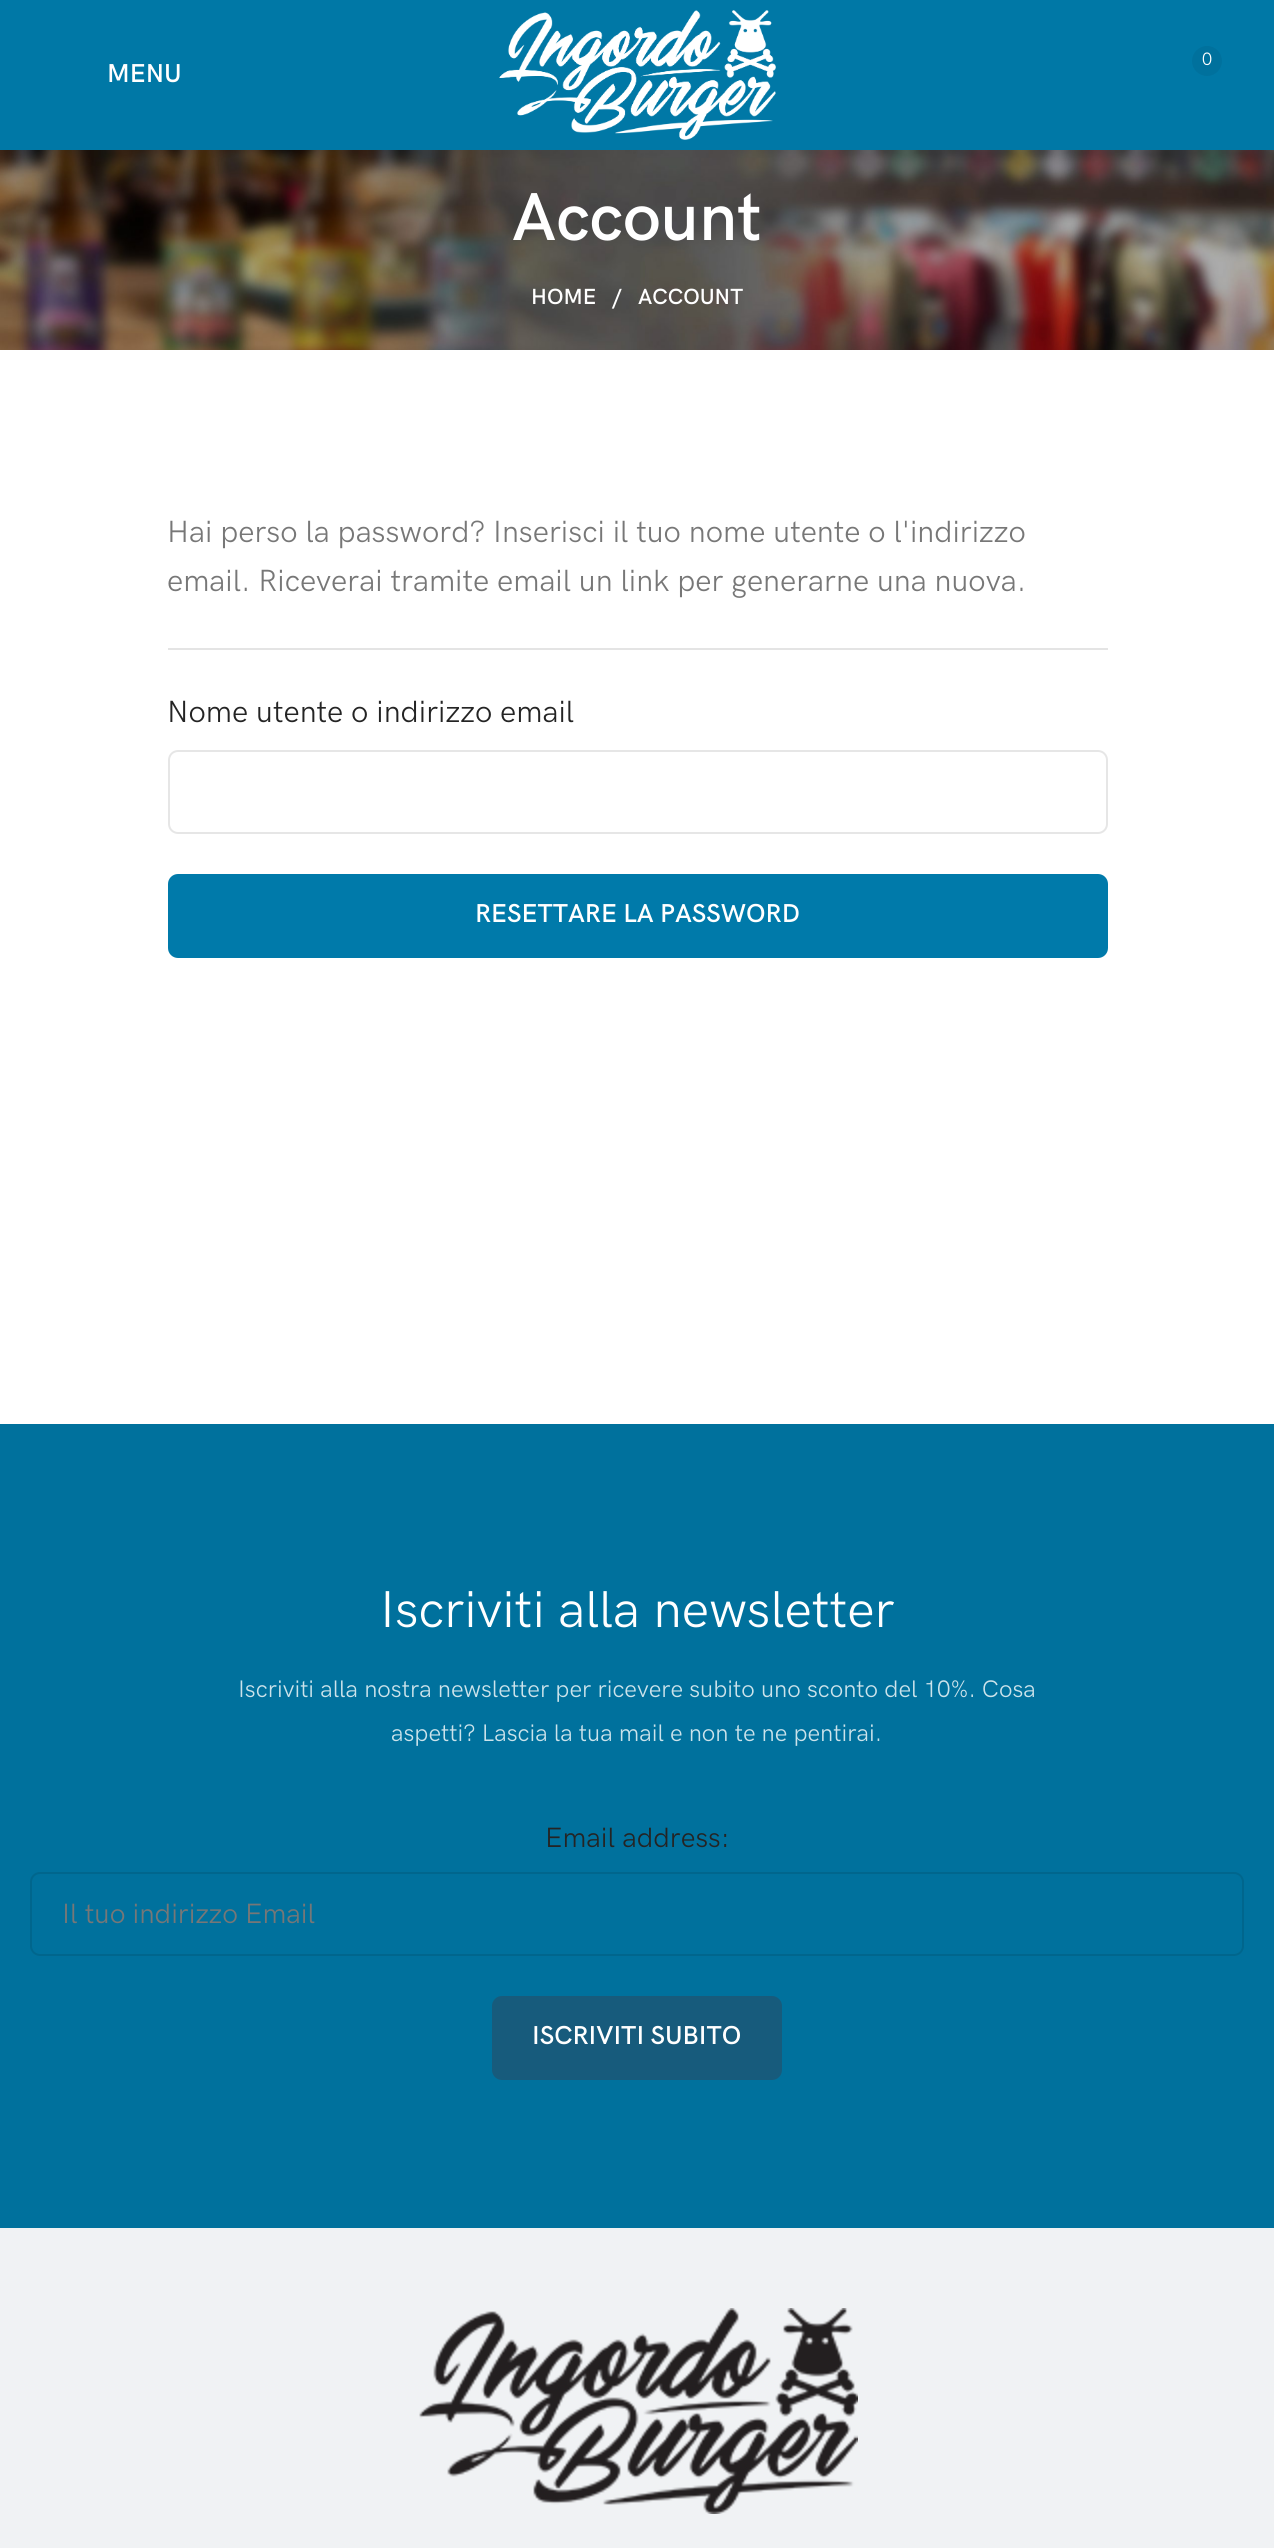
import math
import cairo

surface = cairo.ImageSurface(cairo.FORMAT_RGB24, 1274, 2548)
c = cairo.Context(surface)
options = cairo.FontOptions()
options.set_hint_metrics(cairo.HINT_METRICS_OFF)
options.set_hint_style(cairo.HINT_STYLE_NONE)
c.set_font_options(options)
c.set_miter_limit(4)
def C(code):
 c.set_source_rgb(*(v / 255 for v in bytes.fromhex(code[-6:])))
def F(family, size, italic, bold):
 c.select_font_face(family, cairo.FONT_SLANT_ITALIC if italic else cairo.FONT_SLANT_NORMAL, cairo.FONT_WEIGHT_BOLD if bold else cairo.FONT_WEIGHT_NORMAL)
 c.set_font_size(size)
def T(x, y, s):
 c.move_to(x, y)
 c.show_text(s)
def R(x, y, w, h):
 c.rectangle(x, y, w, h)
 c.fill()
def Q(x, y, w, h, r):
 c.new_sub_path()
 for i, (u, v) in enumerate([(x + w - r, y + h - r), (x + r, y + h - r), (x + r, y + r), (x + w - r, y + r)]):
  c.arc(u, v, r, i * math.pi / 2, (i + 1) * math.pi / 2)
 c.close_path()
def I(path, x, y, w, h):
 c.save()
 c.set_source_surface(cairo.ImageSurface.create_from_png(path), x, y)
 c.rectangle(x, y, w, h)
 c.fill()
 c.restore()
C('ffffff')
c.paint()
C('0078a6')
R(0,0,1274,150)
I('1.png',499,10,277,130)
C('00719d')
c.arc(1207,61,15,0,2 * math.pi)
c.fill()
F('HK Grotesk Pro',18,0,0)
C('ffffff')
T(1202,65,'0')
F('HK Grotesk Pro SemiBold',26,0,0)
T(107,82,'MENU')
I('2.png',0,150,1274,200)
F('HK Grotesk Pro SemiBold',68,0,0)
T(512,240,'Account')
F('HK Grotesk Pro SemiBold',22,0,0)
T(531,304,'HOME')
T(612,304,'/')
T(638,304,'ACCOUNT')
F('HK Grotesk Pro',30.8,0,0)
C('777777')
T(167,542,'Hai perso la password? Inserisci il tuo nome utente o l\'indirizzo')
T(167,591,'email. Riceverai tramite email un link per generarne una nuova.')
C('e4e4e4')
R(168,648,940,2)
C('242424')
T(167,722,'Nome utente o indirizzo email')
Q(169,751,938,82,9)
C('e6e6e6')
c.stroke()
C('007aaa')
Q(168,874,940,84,10)
c.fill()
F('HK Grotesk Pro SemiBold',26,0,0)
C('ffffff')
T(475,922,'RESETTARE LA PASSWORD')
C('00719d')
R(0,1424,1274,804)
F('HK Grotesk Pro',52,0,0)
C('ffffff')
T(380,1627,'Iscriviti alla newsletter')
F('HK Grotesk Pro',24,0,0)
C('cce3eb')
T(238,1697,'Iscriviti alla nostra newsletter per ricevere subito uno sconto del 10%. Cosa')
T(391,1741,'aspetti? Lascia la tua mail e non te ne pentirai.')
F('HK Grotesk Pro',28,0,0)
C('242424')
T(545,1847,'Email address:')
Q(31,1873,1212,82,9)
C('00668d')
c.stroke()
C('777777')
T(62,1923,'Il tuo indirizzo Email')
C('175b7c')
Q(492,1996,290,84,10)
c.fill()
F('HK Grotesk Pro SemiBold',26,0,0)
C('ffffff')
T(532,2044,'ISCRIVITI SUBITO')
C('f0f2f4')
R(0,2228,1274,320)
I('3.png',419,2308,439,206)
surface.write_to_png('o.png')
